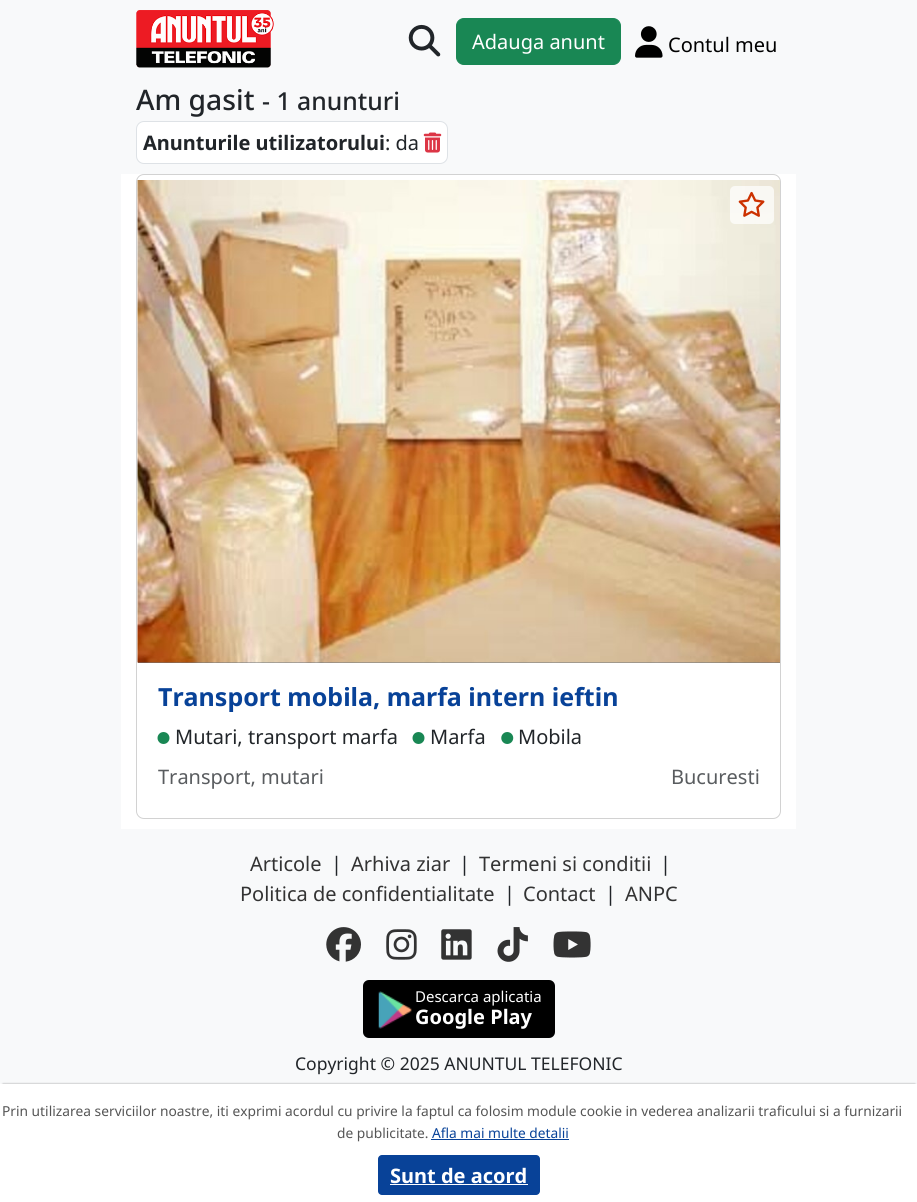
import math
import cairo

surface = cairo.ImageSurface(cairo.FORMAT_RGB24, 917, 1202)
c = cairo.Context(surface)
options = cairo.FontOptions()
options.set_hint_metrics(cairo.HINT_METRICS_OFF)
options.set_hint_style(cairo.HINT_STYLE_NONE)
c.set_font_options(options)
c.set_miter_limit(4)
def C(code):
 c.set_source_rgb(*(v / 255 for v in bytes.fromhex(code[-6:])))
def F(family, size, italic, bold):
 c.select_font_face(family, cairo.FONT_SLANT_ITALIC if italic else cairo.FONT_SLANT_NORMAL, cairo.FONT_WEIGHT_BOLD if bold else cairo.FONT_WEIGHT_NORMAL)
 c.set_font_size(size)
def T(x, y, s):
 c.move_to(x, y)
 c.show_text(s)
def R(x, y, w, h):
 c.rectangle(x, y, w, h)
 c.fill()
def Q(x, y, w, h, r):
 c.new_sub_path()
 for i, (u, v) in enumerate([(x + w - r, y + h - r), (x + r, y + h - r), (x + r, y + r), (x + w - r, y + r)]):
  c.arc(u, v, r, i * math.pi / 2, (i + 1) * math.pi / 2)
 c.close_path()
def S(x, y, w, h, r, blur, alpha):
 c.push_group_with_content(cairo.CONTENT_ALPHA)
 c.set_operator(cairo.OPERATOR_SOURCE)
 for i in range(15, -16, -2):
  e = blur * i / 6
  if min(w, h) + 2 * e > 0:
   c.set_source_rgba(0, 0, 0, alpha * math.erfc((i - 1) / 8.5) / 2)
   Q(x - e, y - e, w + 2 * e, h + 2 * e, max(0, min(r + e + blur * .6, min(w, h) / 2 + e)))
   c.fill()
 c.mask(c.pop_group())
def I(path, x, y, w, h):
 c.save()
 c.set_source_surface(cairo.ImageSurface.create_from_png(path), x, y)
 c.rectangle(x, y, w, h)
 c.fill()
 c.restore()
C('f8f9fa')
c.paint()
I('1.png',136,10,138,58)
I('2.png',408,24,33,33)
C('198754')
Q(456.5,18.5,164,46,7.5)
c.fill_preserve()
c.set_line_width(1)
c.stroke()
F('Noto Sans',20,0,0)
C('ffffff')
T(472,49,'Adauga anunt')
I('3.png',635,26,28,32)
C('000000')
T(668,52,'Contul meu')
F('Noto Sans Medium',28.25,0,0)
C('212529')
T(136,110,'Am gasit')
F('Noto Sans Medium',24.75,0,0)
T(262,110,'- 1 anunturi')
C('ffffff')
Q(136.5,121.5,311,42,7.5)
c.fill_preserve()
C('dee2e6')
c.stroke()
F('Noto Sans',20,0,1)
C('212529')
T(143,150,'Anunturile utilizatorului')
F('Noto Sans',20,0,0)
T(385,150,': da')
I('4.png',423,132,19,21)
C('ffffff')
R(121,174,675,655)
Q(136.5,174.5,644,644,7.5)
C('d2d2d2')
c.stroke()
C('6c757d')
R(138,662,642,1)
I('5.png',137,180,643,483)
c.set_source_rgba(1,1,1,0.7)
Q(730,186,44,38,5)
c.fill()
I('6.png',738,191,27,26)
F('Noto Sans',25,0,1)
C('084298')
T(158,706,'Transport mobila, marfa intern ieftin')
I('7.png',157,732,13,12)
F('Noto Sans',20,0,0)
C('212529')
T(175,744,'Mutari, transport marfa')
I('7.png',412,732,13,12)
T(430,744,'Marfa')
I('8.png',501,732,13,12)
T(518,744,'Mobila')
C('595c5f')
T(158,784,'Transport, mutari')
T(671,784,'Bucuresti')
C('333333')
T(250,871,'Articole')
C('212529')
T(331,871,'|')
C('333333')
T(351,871,'Arhiva ziar')
C('212529')
T(459,871,'|')
C('333333')
T(479,871,'Termeni si conditii')
C('212529')
T(660,871,'|')
C('333333')
T(240,901,'Politica de confidentialitate')
C('212529')
T(504,901,'|')
C('333333')
T(523,901,'Contact')
C('212529')
T(605,901,'|')
C('333333')
T(625,901,'ANPC')
I('9.png',326,927,35,35)
I('10.png',386,929,31,31)
I('11.png',441,929,31,31)
I('12.png',497,927,31,35)
I('13.png',553,931,38,27)
C('000000')
Q(363,980,192,58,6)
c.fill()
I('14.png',378,991,34,38)
F('Noto Sans',15,0,0)
C('ffffff')
T(415,1002,'Descarca aplicatia')
F('Noto Sans',20,0,1)
T(415,1024,'Google Play')
F('Noto Sans',17.5,0,0)
C('212529')
T(295,1070,'Copyright © 2025 ANUNTUL TELEFONIC')
C('000000')
S(3,1084,912,114,0,1,.4)
C('ffffff')
R(0,1084,917,118)
F('Noto Sans',13.75,0,0)
C('555555')
T(2,1116,'Prin utilizarea serviciilor noastre, iti exprimi acordul cu privire la faptul ca folosim module cookie in vederea analizarii traficului si a furnizarii')
T(337,1138,'de publicitate.')
C('084298')
T(432,1138,'Afla mai multe detalii')
R(431,1139,138,1)
Q(378,1155,162,40,4)
c.fill()
F('Noto Sans',20,0,1)
C('ffffff')
T(390,1183,'Sunt de acord')
R(390,1184,138,1)
surface.write_to_png('o.png')
